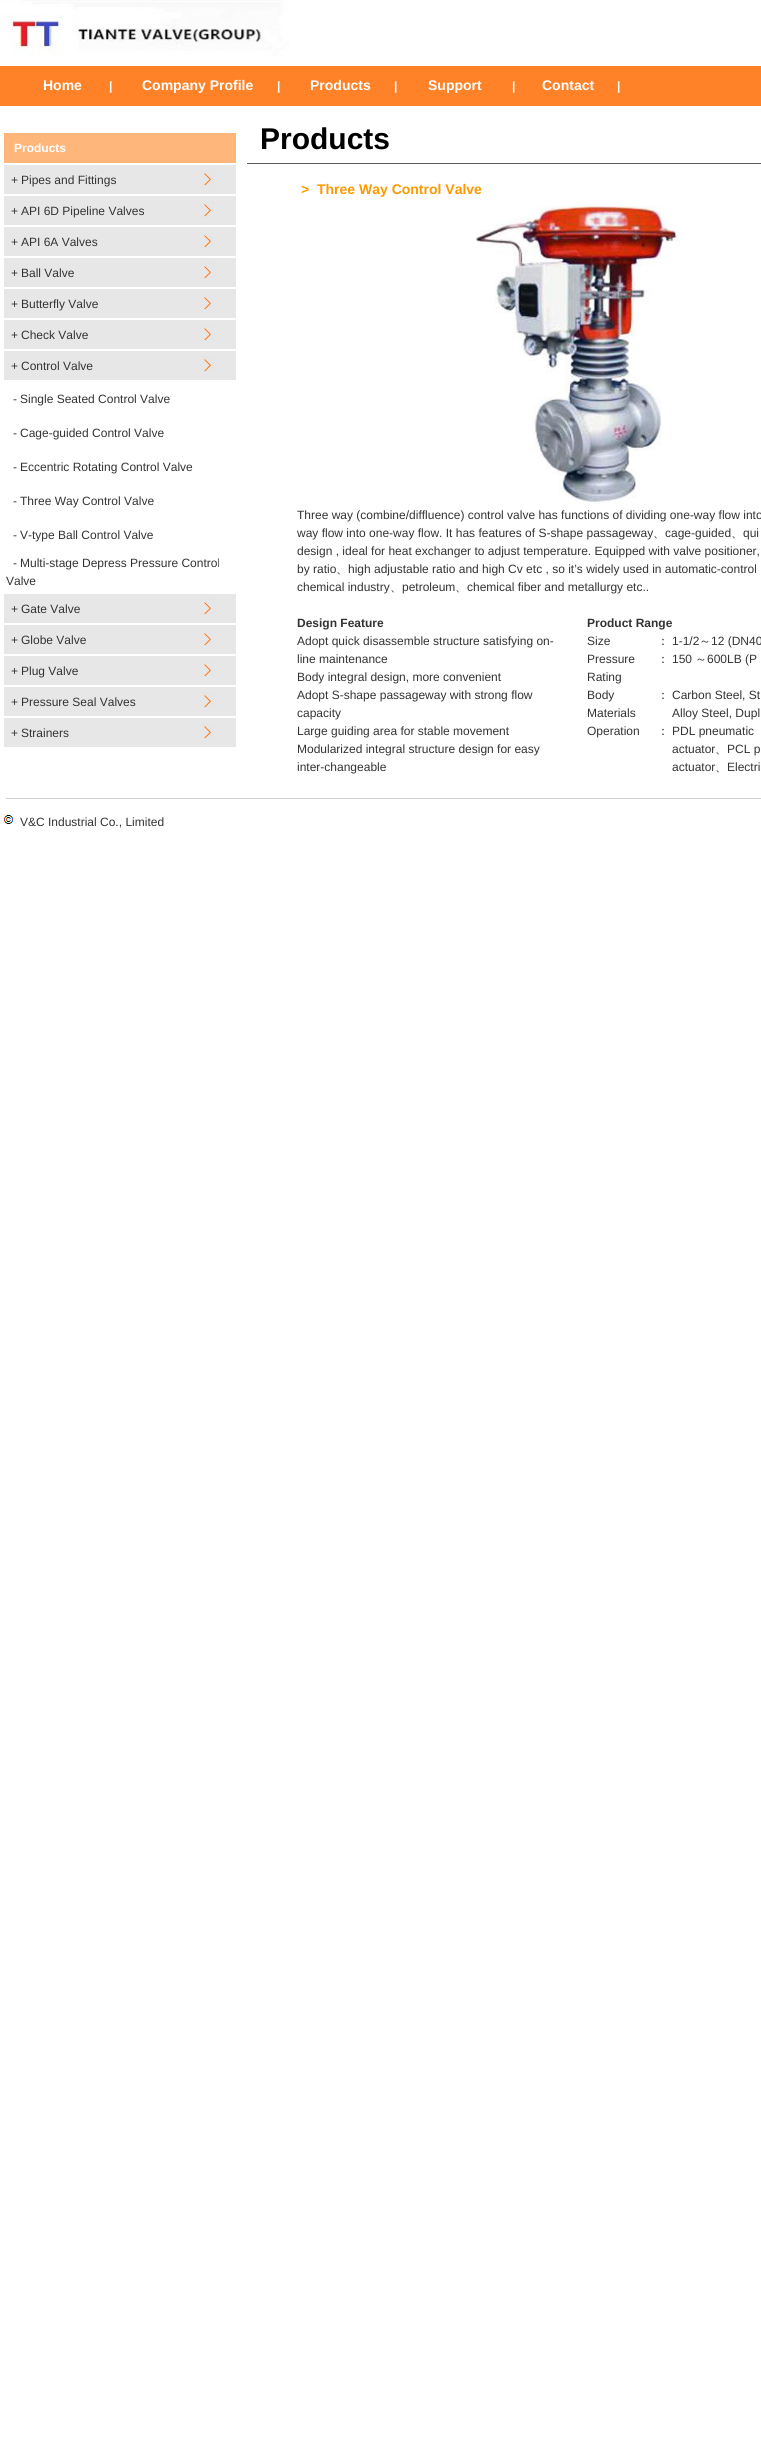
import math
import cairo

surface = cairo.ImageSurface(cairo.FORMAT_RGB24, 761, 2440)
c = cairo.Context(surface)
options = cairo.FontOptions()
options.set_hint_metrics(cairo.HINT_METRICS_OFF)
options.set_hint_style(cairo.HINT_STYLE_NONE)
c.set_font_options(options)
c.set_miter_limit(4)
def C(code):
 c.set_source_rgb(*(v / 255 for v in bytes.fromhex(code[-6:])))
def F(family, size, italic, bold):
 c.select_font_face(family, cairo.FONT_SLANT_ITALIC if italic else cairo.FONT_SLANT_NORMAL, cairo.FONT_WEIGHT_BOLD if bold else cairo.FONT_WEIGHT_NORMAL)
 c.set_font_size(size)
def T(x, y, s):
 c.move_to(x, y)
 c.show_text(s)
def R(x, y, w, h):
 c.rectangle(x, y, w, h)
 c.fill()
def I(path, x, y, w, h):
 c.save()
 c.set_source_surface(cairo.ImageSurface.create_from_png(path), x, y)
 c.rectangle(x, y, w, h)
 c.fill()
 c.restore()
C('ffffff')
c.paint()
I('1.png',0,0,289,56)
C('ff8229')
R(0,66,761,40)
F('Liberation Sans',14,0,1)
C('ffffff')
T(43,90,'Home')
F('Liberation Sans',12,0,1)
T(109,90,'|')
F('Liberation Sans',14,0,1)
T(142,90,'Company Profile')
F('Liberation Sans',12,0,1)
T(277,90,'|')
F('Liberation Sans',14,0,1)
T(310,90,'Products')
F('Liberation Sans',12,0,1)
T(394,90,'|')
F('Liberation Sans',14,0,1)
T(428,90,'Support')
F('Liberation Sans',12,0,1)
T(512,90,'|')
F('Liberation Sans',14,0,1)
T(542,90,'Contact')
F('Liberation Sans',12,0,1)
T(617,90,'|')
C('ffb67b')
R(4,133,232,30)
C('ffffff')
T(14,152,'Products')
C('e7e7e7')
R(4,165,232,29)
F('Liberation Sans',12,0,0)
C('333333')
T(11,184,'+')
T(21,184,'Pipes and Fittings')
I('2.png',199,170,16,16)
C('e7e7e7')
R(4,196,232,29)
C('333333')
T(11,215,'+')
T(21,215,'API 6D Pipeline Valves')
I('2.png',199,201,16,16)
C('e7e7e7')
R(4,227,232,29)
C('333333')
T(11,246,'+')
T(21,246,'API 6A Valves')
I('2.png',199,232,16,16)
C('e7e7e7')
R(4,258,232,29)
C('333333')
T(11,277,'+')
T(21,277,'Ball Valve')
I('2.png',199,263,16,16)
C('e7e7e7')
R(4,289,232,29)
C('333333')
T(11,308,'+')
T(21,308,'Butterfly Valve')
I('2.png',199,294,16,16)
C('e7e7e7')
R(4,320,232,29)
C('333333')
T(11,339,'+')
T(21,339,'Check Valve')
I('2.png',199,325,16,16)
C('e7e7e7')
R(4,351,232,29)
C('333333')
T(11,370,'+')
T(21,370,'Control Valve')
I('2.png',199,356,16,16)
T(13,403,'-')
T(20,403,'Single Seated Control Valve')
T(13,437,'-')
T(20,437,'Cage-guided Control Valve')
T(13,471,'-')
T(20,471,'Eccentric Rotating Control Valve')
T(13,505,'-')
T(20,505,'Three Way Control Valve')
T(13,539,'-')
T(20,539,'V-type Ball Control Valve')
T(13,567,'-')
T(20,567,'Multi-stage Depress Pressure Control')
T(6,585,'Valve')
C('e7e7e7')
R(4,594,232,29)
C('333333')
T(11,613,'+')
T(21,613,'Gate Valve')
I('2.png',199,599,16,16)
C('e7e7e7')
R(4,625,232,29)
C('333333')
T(11,644,'+')
T(21,644,'Globe Valve')
I('2.png',199,630,16,16)
C('e7e7e7')
R(4,656,232,29)
C('333333')
T(11,675,'+')
T(21,675,'Plug Valve')
I('2.png',199,661,16,16)
C('e7e7e7')
R(4,687,232,29)
C('333333')
T(11,706,'+')
T(21,706,'Pressure Seal Valves')
I('2.png',199,692,16,16)
C('e7e7e7')
R(4,718,232,29)
C('333333')
T(11,737,'+')
T(21,737,'Strainers')
I('2.png',199,723,16,16)
F('Liberation Sans',30,0,1)
C('000000')
T(260,149,'Products')
C('5b5b5b')
R(247,163,514,1)
F('Liberation Sans',14,0,1)
C('ff9900')
T(301,194,'>  Three Way Control Valve')
I('3.png',475,206,206,299)
F('Liberation Sans',12,0,0)
C('333333')
T(297,519,'Three way (combine/diffluence) control valve has functions of dividing one-way flow into')
T(297,537,'way flow into one-way flow. It has features of S-shape passageway')
F('WenQuanYi Zen Hei Medium',12,0,0)
T(653,537,'、')
F('Liberation Sans',12,0,0)
T(665,537,'cage-guided')
F('WenQuanYi Zen Hei Medium',12,0,0)
T(731,537,'、')
F('Liberation Sans',12,0,0)
T(743,537,'qui')
T(297,555,'design , ideal for heat exchanger to adjust temperature. Equipped with valve positioner,')
T(297,573,'by ratio')
F('WenQuanYi Zen Hei Medium',12,0,0)
T(336,573,'、')
F('Liberation Sans',12,0,0)
T(348,573,'high adjustable ratio and high Cv etc , so it’s widely used in automatic-control')
T(297,591,'chemical industry')
F('WenQuanYi Zen Hei Medium',12,0,0)
T(390,591,'、')
F('Liberation Sans',12,0,0)
T(402,591,'petroleum')
F('WenQuanYi Zen Hei Medium',12,0,0)
T(455,591,'、')
F('Liberation Sans',12,0,0)
T(467,591,'chemical fiber and metallurgy etc..')
F('Liberation Sans',12,0,1)
T(297,627,'Design Feature')
T(587,627,'Product Range')
F('Liberation Sans',12,0,0)
T(297,645,'Adopt quick disassemble structure satisfying on-')
T(297,663,'line maintenance')
T(297,681,'Body integral design, more convenient')
T(297,699,'Adopt S-shape passageway with strong flow')
T(297,717,'capacity')
T(297,735,'Large guiding area for stable movement')
T(297,753,'Modularized integral structure design for easy')
T(297,771,'inter-changeable')
T(587,645,'Size')
F('WenQuanYi Zen Hei Medium',12,0,0)
T(657,645,'：')
F('Liberation Sans',12,0,0)
T(672,645,'1-1/2')
F('WenQuanYi Zen Hei Medium',12,0,0)
T(699,645,'～')
F('Liberation Sans',12,0,0)
T(711,645,'12 (DN40')
T(587,663,'Pressure')
T(587,681,'Rating')
F('WenQuanYi Zen Hei Medium',12,0,0)
T(657,663,'：')
F('Liberation Sans',12,0,0)
T(672,663,'150')
F('WenQuanYi Zen Hei Medium',12,0,0)
T(695,663,'～')
F('Liberation Sans',12,0,0)
T(707,663,'600LB (P')
T(587,699,'Body')
T(587,717,'Materials')
F('WenQuanYi Zen Hei Medium',12,0,0)
T(657,699,'：')
F('Liberation Sans',12,0,0)
T(672,699,'Carbon Steel, St')
T(672,717,'Alloy Steel, Dupl')
T(587,735,'Operation')
F('WenQuanYi Zen Hei Medium',12,0,0)
T(657,735,'：')
F('Liberation Sans',12,0,0)
T(672,735,'PDL pneumatic')
T(672,753,'actuator')
F('WenQuanYi Zen Hei Medium',12,0,0)
T(715,753,'、')
F('Liberation Sans',12,0,0)
T(727,753,'PCL p')
T(672,771,'actuator')
F('WenQuanYi Zen Hei Medium',12,0,0)
T(715,771,'、')
F('Liberation Sans',12,0,0)
T(727,771,'Electri')
I('4.png',5,798,756,1)
I('5.png',3,813,11,11)
T(20,826,'V&C Industrial Co., Limited')
surface.write_to_png('o.png')
